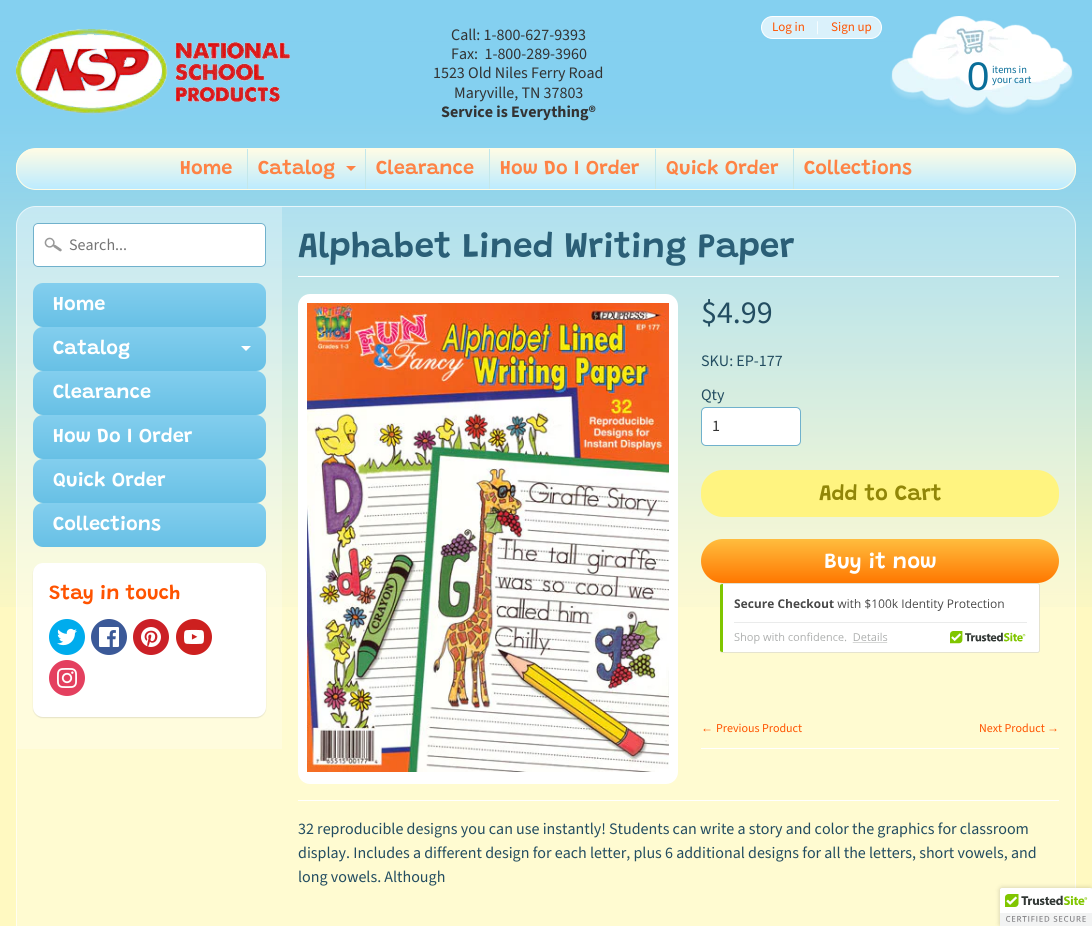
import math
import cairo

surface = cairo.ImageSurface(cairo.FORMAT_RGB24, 1092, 926)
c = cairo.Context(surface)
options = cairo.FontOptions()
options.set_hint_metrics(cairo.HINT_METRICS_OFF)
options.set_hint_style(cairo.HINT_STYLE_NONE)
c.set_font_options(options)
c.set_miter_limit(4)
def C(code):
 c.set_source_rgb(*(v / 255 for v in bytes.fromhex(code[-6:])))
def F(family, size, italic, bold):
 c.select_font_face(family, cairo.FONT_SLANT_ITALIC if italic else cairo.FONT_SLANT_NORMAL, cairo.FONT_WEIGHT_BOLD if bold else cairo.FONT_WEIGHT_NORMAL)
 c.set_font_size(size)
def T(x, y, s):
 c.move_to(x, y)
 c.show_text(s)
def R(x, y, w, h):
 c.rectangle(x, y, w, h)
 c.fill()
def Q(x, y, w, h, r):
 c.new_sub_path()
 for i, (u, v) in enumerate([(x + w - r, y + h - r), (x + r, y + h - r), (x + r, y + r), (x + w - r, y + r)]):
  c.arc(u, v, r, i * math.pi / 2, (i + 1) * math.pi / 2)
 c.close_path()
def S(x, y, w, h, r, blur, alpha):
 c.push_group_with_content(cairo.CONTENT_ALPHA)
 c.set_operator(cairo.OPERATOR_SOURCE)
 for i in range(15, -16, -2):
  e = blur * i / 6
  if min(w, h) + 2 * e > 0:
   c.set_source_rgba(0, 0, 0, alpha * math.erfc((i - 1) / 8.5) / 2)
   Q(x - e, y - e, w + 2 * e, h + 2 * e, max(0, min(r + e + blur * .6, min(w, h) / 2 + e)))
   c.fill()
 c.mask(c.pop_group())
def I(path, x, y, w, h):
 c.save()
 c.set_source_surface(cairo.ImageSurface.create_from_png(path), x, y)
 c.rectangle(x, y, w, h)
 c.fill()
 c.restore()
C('fff9c1')
c.paint()
I('1.png',0,0,1092,607)
I('2.png',16,29,274,86)
F('Source Sans Pro',16,0,0)
C('333333')
T(451,40,'Call: 1-800-627-9393')
T(451,59,'Fax:  1-800-289-3960')
T(433,78,'1523 Old Niles Ferry Road')
T(454,98,'Maryville, TN 37803')
F('Source Sans Pro',16,0,1)
T(441,117,'Service is Everything®')
C('daf1fb')
Q(761.5,16.5,120,22,11)
c.fill_preserve()
C('ffffff')
c.set_line_width(1)
c.stroke()
F('Source Sans Pro',13,0,0)
C('ff5300')
T(772,31,'Log in')
C('ffffff')
T(816,31,'|')
C('ff5300')
T(831,31,'Sign up')
I('3.png',890,16,184,99)
F('Liberation Sans',40,0,0)
C('0a6e99')
T(967,90,'0')
F('Source Sans Pro',10.5,0,0)
T(992,73,'items in')
T(992,83,'your cart')
c.save()
Q(16,148,1060,42,20)
c.clip()
gradient = cairo.LinearGradient(546,149,546,189)
gradient.add_color_stop_rgba(0,1,0.988,0.898,1)
gradient.add_color_stop_rgba(1,0.737,0.922,1,1)
c.set_source(gradient)
R(16,149,1060,40)
c.restore()
Q(16.5,148.5,1059,41,19.5)
C('fffce5')
c.stroke()
F('Grandstander SemiBold',20,0,0)
C('fe8345')
T(180,174,'Home')
C('c3e7ea')
R(247,149,1,40)
C('fe8345')
T(258,174,'Catalog')
c.new_path()
c.move_to(346,166)
c.line_to(356,166)
c.line_to(351,171)
c.close_path()
c.fill()
C('c3e7ea')
R(365,149,1,40)
C('fe8345')
T(376,174,'Clearance')
C('c3e7ea')
R(489,149,1,40)
C('fe8345')
T(500,174,'How Do I Order')
C('c3e7ea')
R(655,149,1,40)
C('fe8345')
T(666,174,'Quick Order')
C('c3e7ea')
R(793,149,1,40)
C('fe8345')
T(804,174,'Collections')
c.set_source_rgba(1,1,1,0.25)
Q(16,206,1060,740,20)
c.fill()
Q(16.5,206.5,1059,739,19.5)
c.set_source_rgba(1,1,1,0.7)
c.stroke()
c.set_source_rgba(1,1,1,0.25)
c.new_path()
c.move_to(36,207)
c.line_to(282,207)
c.line_to(282,749)
c.line_to(17,749)
c.line_to(17,226)
c.curve_to(17,215.5,25.5,207,36,207)
c.close_path()
c.fill()
C('ffffff')
Q(33,223,233,44,5)
c.fill()
I('4.png',44,237,18,15)
Q(33.5,223.5,232,43,4.5)
C('70b1cc')
c.stroke()
F('Source Sans Pro',16,0,0)
C('757575')
T(69,250,'Search...')
gradient = cairo.LinearGradient(150,283,150,327)
gradient.add_color_stop_rgba(0,0.514,0.808,0.933,1)
gradient.add_color_stop_rgba(1,0.404,0.753,0.898,1)
c.set_source(gradient)
Q(33,283,233,44,10)
c.fill()
F('Grandstander SemiBold',20,0,0)
C('ffffff')
T(53,310,'Home')
gradient = cairo.LinearGradient(150,327,150,371)
gradient.add_color_stop_rgba(0,0.514,0.808,0.933,1)
gradient.add_color_stop_rgba(1,0.404,0.753,0.898,1)
c.set_source(gradient)
Q(33,327,233,44,10)
c.fill()
C('ffffff')
T(53,354,'Catalog')
c.new_path()
c.move_to(241,346)
c.line_to(251,346)
c.line_to(246,351)
c.close_path()
c.fill()
gradient = cairo.LinearGradient(150,371,150,415)
gradient.add_color_stop_rgba(0,0.514,0.808,0.933,1)
gradient.add_color_stop_rgba(1,0.404,0.753,0.898,1)
c.set_source(gradient)
Q(33,371,233,44,10)
c.fill()
C('ffffff')
T(53,398,'Clearance')
gradient = cairo.LinearGradient(150,415,150,459)
gradient.add_color_stop_rgba(0,0.514,0.808,0.933,1)
gradient.add_color_stop_rgba(1,0.404,0.753,0.898,1)
c.set_source(gradient)
Q(33,415,233,44,10)
c.fill()
C('ffffff')
T(53,442,'How Do I Order')
gradient = cairo.LinearGradient(150,459,150,503)
gradient.add_color_stop_rgba(0,0.514,0.808,0.933,1)
gradient.add_color_stop_rgba(1,0.404,0.753,0.898,1)
c.set_source(gradient)
Q(33,459,233,44,10)
c.fill()
C('ffffff')
T(53,486,'Quick Order')
gradient = cairo.LinearGradient(150,503,150,547)
gradient.add_color_stop_rgba(0,0.514,0.808,0.933,1)
gradient.add_color_stop_rgba(1,0.404,0.753,0.898,1)
c.set_source(gradient)
Q(33,503,233,44,10)
c.fill()
C('ffffff')
T(53,530,'Collections')
C('000000')
S(33,564,233,154,10,.5,.1)
C('ffffff')
Q(33,563,233,154,10)
c.fill()
C('ff5300')
T(49,599,'Stay in touch')
C('00aced')
c.new_path()
c.arc(67,637,18,0,2 * math.pi)
c.fill()
I('5.png',57,628,20,18)
C('3b5998')
c.arc(109,637,18,0,2 * math.pi)
c.fill()
I('6.png',99,627,20,20)
C('cb2027')
c.arc(151,637,18,0,2 * math.pi)
c.fill()
I('7.png',141,627,20,20)
C('cd201f')
c.arc(194,637,18,0,2 * math.pi)
c.fill()
I('8.png',184,629,20,15)
C('e4405f')
c.arc(67,678,18,0,2 * math.pi)
c.fill()
I('9.png',57,668,20,20)
C('ffffff')
R(298,276,761,1)
F('Grandstander SemiBold',35.25,0,0)
C('2b5f77')
T(298,257,'Alphabet Lined Writing Paper')
C('ffffff')
Q(298,294,380,490,12)
c.fill()
I('10.png',307,303,362,469)
F('Source Sans Pro',32,0,0)
C('234d61')
T(701,323,'$4.99')
F('Source Sans Pro',16,0,0)
T(701,366,'SKU: EP-177')
T(701,400,'Qty')
C('ffffff')
Q(701.5,407.5,99,38,4.5)
c.fill_preserve()
C('70b1cc')
c.stroke()
C('333333')
T(712,431,'1')
C('fff480')
Q(701,470,358,47,22)
c.fill()
F('Grandstander SemiBold',22,0,0)
C('918608')
T(819,500,'Add to Cart')
gradient = cairo.LinearGradient(880,539,880,583)
gradient.add_color_stop_rgba(0,1,0.741,0.243,1)
gradient.add_color_stop_rgba(1,1,0.467,0,1)
c.set_source(gradient)
Q(701,539,358,44,22)
c.fill()
C('ffffff')
T(824,568,'Buy it now')
I('11.png',720,583,320,70)
F('Liberation Sans',12,0,0)
C('ff5300')
T(701,732,'←')
F('Source Sans Pro',12,0,0)
T(716,732,'Previous Product')
T(979,732,'Next Product')
F('Liberation Sans',12,0,0)
T(1047,732,'→')
C('ffffff')
R(701,748,358,1)
R(298,800,761,1)
F('Source Sans Pro',16,0,0)
C('234d61')
T(298,834,'32 reproducible designs you can use instantly! Students can write a story and color the graphics for classroom')
T(298,858,'display. Includes a different design for each letter, plus 6 additional designs for all the letters, short vowels, and')
T(298,882,'long vowels. Although')
C('000000')
S(1000,888,92,38,2,2.5,.2)
C('ffffff')
c.new_path()
c.move_to(1002,888)
c.line_to(1092,888)
c.line_to(1092,926)
c.line_to(1000,926)
c.line_to(1000,890)
c.curve_to(1000,889,1001,888,1002,888)
c.close_path()
c.fill()
I('12.png',1000,888,92,38)
surface.write_to_png('o.png')
